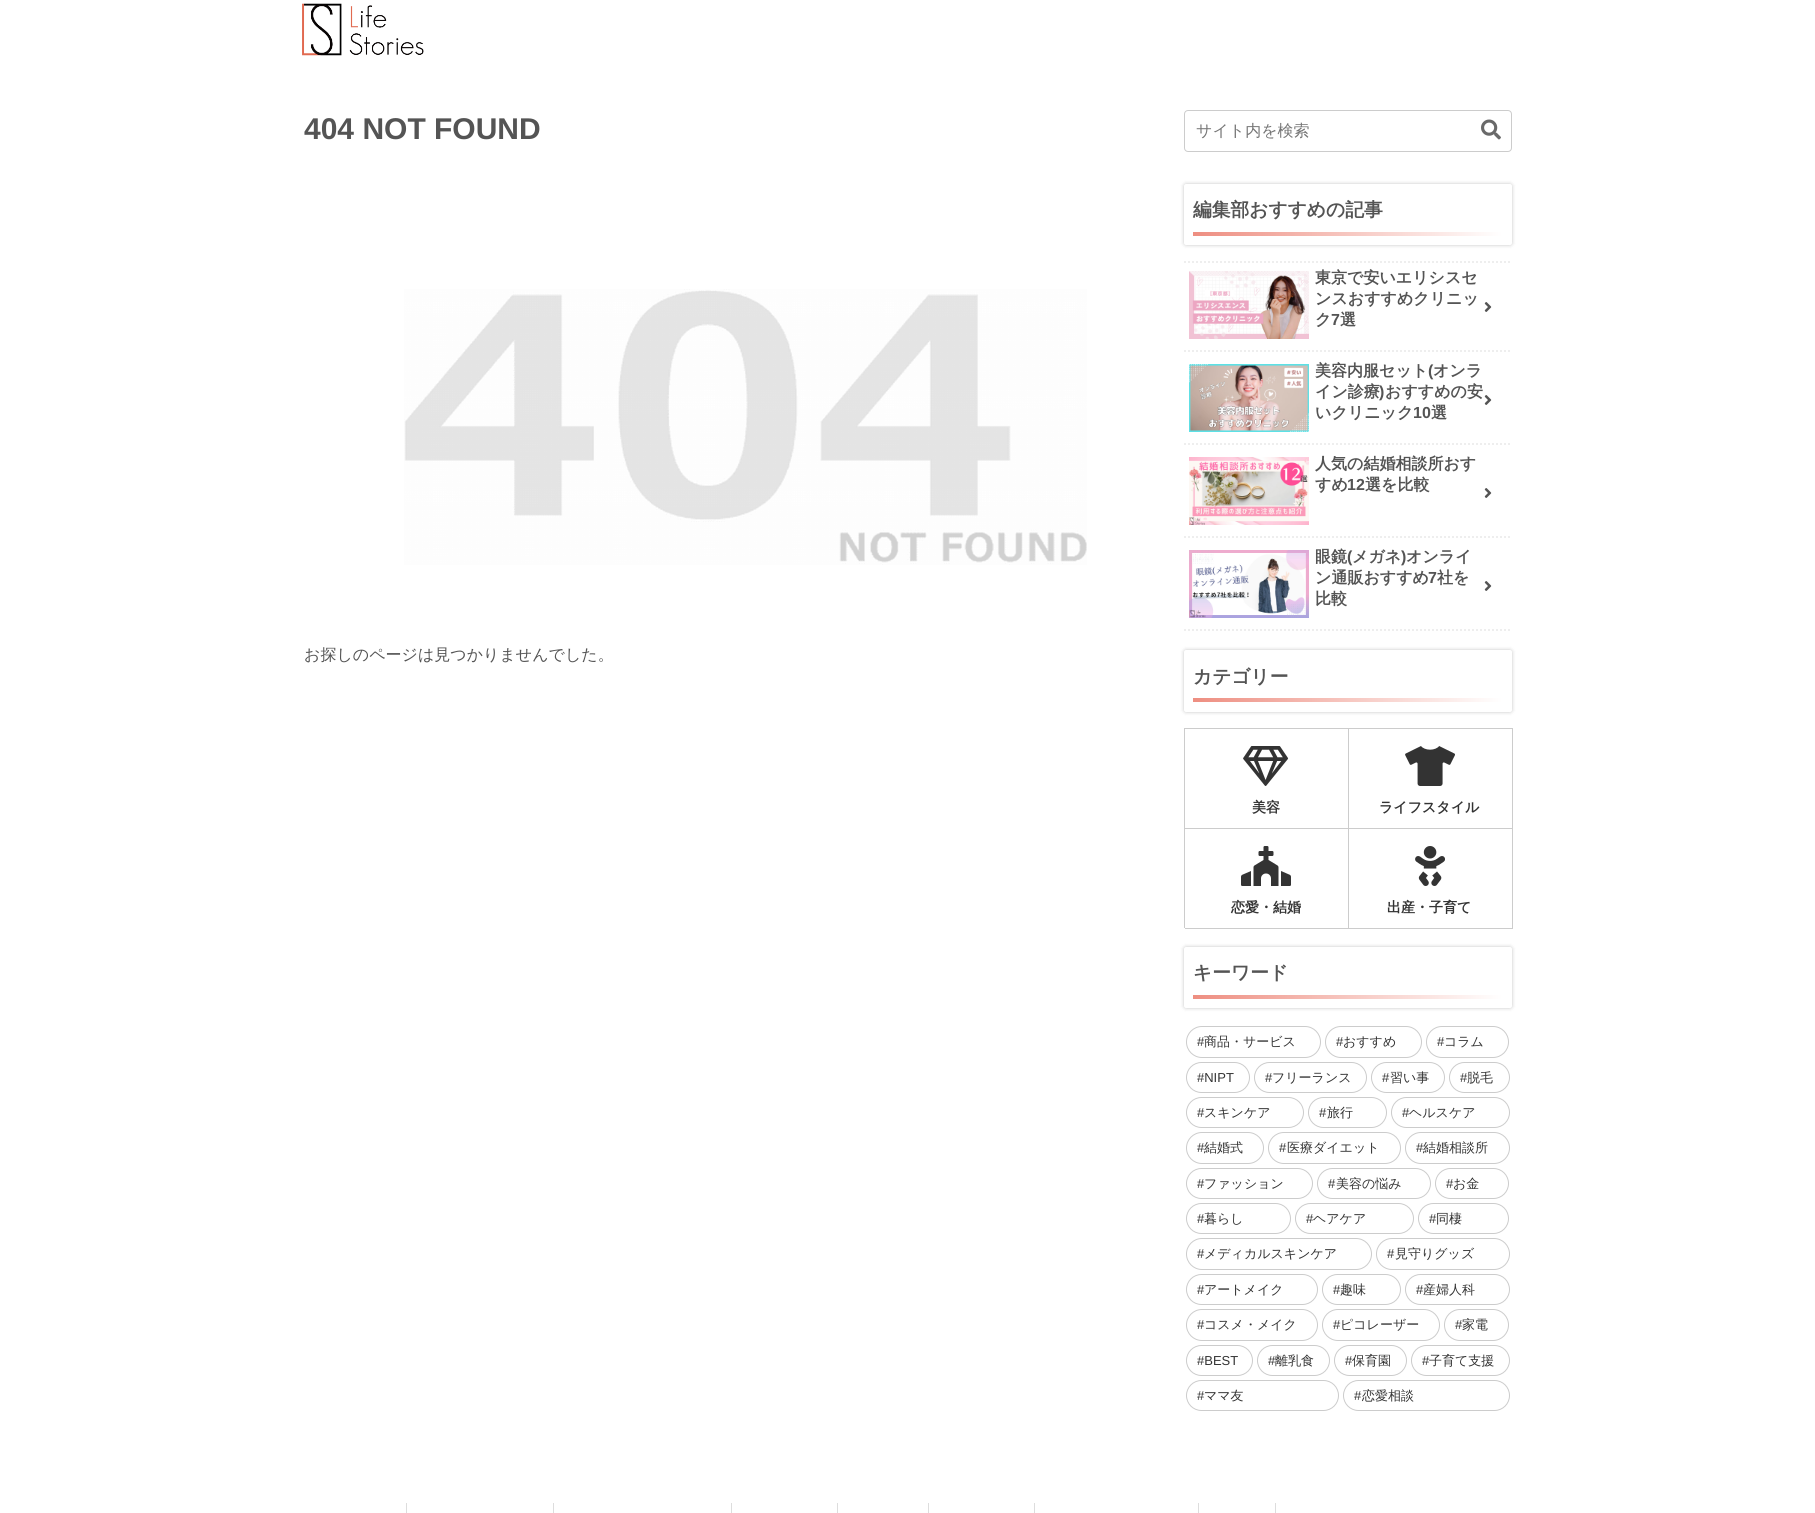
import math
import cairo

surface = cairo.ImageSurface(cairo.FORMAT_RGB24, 1815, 1513)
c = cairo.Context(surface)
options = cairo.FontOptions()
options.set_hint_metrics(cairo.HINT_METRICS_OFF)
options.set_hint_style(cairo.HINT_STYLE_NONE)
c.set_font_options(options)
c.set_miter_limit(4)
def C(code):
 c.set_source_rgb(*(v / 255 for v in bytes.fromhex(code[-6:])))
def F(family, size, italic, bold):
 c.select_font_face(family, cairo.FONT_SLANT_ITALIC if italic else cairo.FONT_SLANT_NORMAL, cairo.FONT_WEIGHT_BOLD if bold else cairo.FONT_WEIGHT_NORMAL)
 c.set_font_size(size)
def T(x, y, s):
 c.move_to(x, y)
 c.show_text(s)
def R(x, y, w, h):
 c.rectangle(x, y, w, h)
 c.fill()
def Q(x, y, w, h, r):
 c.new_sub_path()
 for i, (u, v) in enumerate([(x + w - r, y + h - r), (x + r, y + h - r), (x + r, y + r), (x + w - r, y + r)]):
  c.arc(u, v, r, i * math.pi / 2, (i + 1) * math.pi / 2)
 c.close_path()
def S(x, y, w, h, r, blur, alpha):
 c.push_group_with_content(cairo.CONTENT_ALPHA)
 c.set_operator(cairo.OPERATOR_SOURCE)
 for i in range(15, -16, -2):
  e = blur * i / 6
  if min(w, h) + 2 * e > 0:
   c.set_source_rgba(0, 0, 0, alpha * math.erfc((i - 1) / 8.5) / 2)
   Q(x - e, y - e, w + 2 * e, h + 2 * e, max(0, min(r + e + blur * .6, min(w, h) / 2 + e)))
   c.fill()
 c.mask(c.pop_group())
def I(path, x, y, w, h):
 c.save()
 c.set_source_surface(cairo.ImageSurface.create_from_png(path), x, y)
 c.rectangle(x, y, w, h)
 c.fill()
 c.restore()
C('ffffff')
c.paint()
I('1.png',302,3,122,53)
F('Liberation Sans',30,0,1)
C('545454')
T(304,139,'404 NOT FOUND')
I('2.png',404,289,683,276)
F('WenQuanYi Zen Hei Medium',16,0,0)
T(304,660,'お探しのページは見つかりませんでした。')
Q(1184.5,110.5,327,41,3.5)
C('cccccc')
c.set_line_width(1)
c.stroke()
C('757575')
T(1196,136,'サイト内を検索')
I('3.png',1481,119,20,21)
C('000000')
S(1184,184,328,61,2,2,.23)
C('ffffff')
Q(1184,184,328,61,2)
c.fill()
F('WenQuanYi Zen Hei',18.75,0,1)
C('545454')
T(1193,216,'編集部おすすめの記事')
gradient = cairo.LinearGradient(1193,234,1502,234)
gradient.add_color_stop_rgba(0,0.933,0.557,0.506,1)
gradient.add_color_stop_rgba(1,1,1,1,1)
c.set_source(gradient)
R(1193,232,309,4)
c.new_path()
c.move_to(1184,262)
c.line_to(1512,262)
C('eeeeee')
c.set_line_width(2)
c.set_dash([2,2])
c.stroke()
c.new_path()
c.move_to(1184,351)
c.line_to(1512,351)
c.stroke()
I('4.png',1189,271,120,68)
F('WenQuanYi Zen Hei',16,0,1)
C('545454')
T(1315,283,'東京で安いエリシスセ')
T(1315,304,'ンスおすすめクリニッ')
T(1315,325,'ク')
F('Liberation Sans',16,0,1)
T(1331,325,'7')
F('WenQuanYi Zen Hei',16,0,1)
T(1340,325,'選')
I('5.png',1484,302,8,10)
c.new_path()
c.move_to(1184,444)
c.line_to(1512,444)
C('eeeeee')
c.stroke()
I('6.png',1189,364,120,68)
C('545454')
T(1315,376,'美容内服セット')
F('Liberation Sans',16,0,1)
T(1428,376,'(')
F('WenQuanYi Zen Hei',16,0,1)
T(1433,376,'オンラ')
T(1315,397,'イン診療')
F('Liberation Sans',16,0,1)
T(1379,397,')')
F('WenQuanYi Zen Hei',16,0,1)
T(1385,397,'おすすめの安')
T(1315,418,'いクリニック')
F('Liberation Sans',16,0,1)
T(1413,418,'10')
F('WenQuanYi Zen Hei',16,0,1)
T(1431,418,'選')
I('5.png',1484,395,8,10)
c.new_path()
c.move_to(1184,537)
c.line_to(1512,537)
C('eeeeee')
c.stroke()
I('7.png',1189,457,120,68)
C('545454')
T(1315,469,'人気の結婚相談所おす')
T(1315,490,'すめ')
F('Liberation Sans',16,0,1)
T(1347,490,'12')
F('WenQuanYi Zen Hei',16,0,1)
T(1365,490,'選を比較')
I('5.png',1484,488,8,10)
c.new_path()
c.move_to(1184,630)
c.line_to(1512,630)
C('eeeeee')
c.stroke()
I('8.png',1189,550,120,68)
C('545454')
T(1315,562,'眼鏡')
F('Liberation Sans',16,0,1)
T(1347,562,'(')
F('WenQuanYi Zen Hei',16,0,1)
T(1352,562,'メガネ')
F('Liberation Sans',16,0,1)
T(1401,562,')')
F('WenQuanYi Zen Hei',16,0,1)
T(1406,562,'オンライ')
T(1315,583,'ン通販おすすめ')
F('Liberation Sans',16,0,1)
T(1428,583,'7')
F('WenQuanYi Zen Hei',16,0,1)
T(1437,583,'社を')
T(1315,604,'比較')
I('5.png',1484,581,8,10)
C('000000')
S(1184,650,328,62,2,2,.23)
C('ffffff')
Q(1184,650,328,62,2)
c.fill()
F('WenQuanYi Zen Hei',18.75,0,1)
C('545454')
T(1193,683,'カテゴリー')
gradient = cairo.LinearGradient(1193,700,1502,700)
gradient.add_color_stop_rgba(0,0.933,0.557,0.506,1)
gradient.add_color_stop_rgba(1,1,1,1,1)
c.set_source(gradient)
R(1193,698,309,4)
c.save()
c.rectangle(1184,728,164,100)
c.clip()
C('cccccc')
c.set_fill_rule(cairo.FILL_RULE_EVEN_ODD)
c.new_path()
c.move_to(1085,629)
c.line_to(1447,629)
c.line_to(1447,927)
c.line_to(1085,927)
c.close_path()
c.move_to(1185,729)
c.line_to(1349,729)
c.line_to(1349,829)
c.line_to(1185,829)
c.close_path()
c.fill()
c.restore()
I('9.png',1243,746,46,40)
F('WenQuanYi Zen Hei',14,0,1)
C('333333')
T(1252,812,'美容')
C('cccccc')
R(1512,728,1,1)
c.new_path()
c.move_to(1349,828)
c.line_to(1349,829)
c.line_to(1513,829)
c.line_to(1513,729)
c.line_to(1512,729)
c.line_to(1512,828)
c.close_path()
c.fill()
c.save()
c.rectangle(1348,728,164,100)
c.clip()
c.set_fill_rule(cairo.FILL_RULE_EVEN_ODD)
c.new_path()
c.move_to(1249,629)
c.line_to(1611,629)
c.line_to(1611,927)
c.line_to(1249,927)
c.close_path()
c.move_to(1349,729)
c.line_to(1513,729)
c.line_to(1513,829)
c.line_to(1349,829)
c.close_path()
c.fill()
c.restore()
I('10.png',1405,746,50,40)
C('333333')
T(1379,812,'ライフスタイル')
C('cccccc')
c.new_path()
c.move_to(1185,928)
c.line_to(1185,929)
c.line_to(1349,929)
c.line_to(1349,829)
c.line_to(1348,829)
c.line_to(1348,928)
c.close_path()
c.fill()
c.save()
c.rectangle(1184,828,164,100)
c.clip()
c.set_fill_rule(cairo.FILL_RULE_EVEN_ODD)
c.new_path()
c.move_to(1085,729)
c.line_to(1447,729)
c.line_to(1447,1027)
c.line_to(1085,1027)
c.close_path()
c.move_to(1185,829)
c.line_to(1349,829)
c.line_to(1349,929)
c.line_to(1185,929)
c.close_path()
c.fill()
c.restore()
I('11.png',1241,846,50,40)
C('333333')
T(1231,912,'恋愛・結婚')
C('cccccc')
c.new_path()
c.move_to(1349,928)
c.line_to(1349,929)
c.line_to(1513,929)
c.line_to(1513,829)
c.line_to(1512,829)
c.line_to(1512,928)
c.close_path()
c.fill()
c.save()
c.rectangle(1348,828,164,100)
c.clip()
c.set_fill_rule(cairo.FILL_RULE_EVEN_ODD)
c.new_path()
c.move_to(1249,729)
c.line_to(1611,729)
c.line_to(1611,1027)
c.line_to(1249,1027)
c.close_path()
c.move_to(1349,829)
c.line_to(1513,829)
c.line_to(1513,929)
c.line_to(1349,929)
c.close_path()
c.fill()
c.restore()
I('12.png',1415,846,30,40)
C('333333')
T(1387,912,'出産・子育て')
C('000000')
S(1184,947,328,61,2,2,.23)
C('ffffff')
Q(1184,947,328,61,2)
c.fill()
F('WenQuanYi Zen Hei',18.75,0,1)
C('545454')
T(1193,979,'キーワード')
gradient = cairo.LinearGradient(1193,997,1502,997)
gradient.add_color_stop_rgba(0,0.933,0.557,0.506,1)
gradient.add_color_stop_rgba(1,1,1,1,1)
c.set_source(gradient)
R(1193,995,309,4)
Q(1186.5,1026.5,134,31,15.5)
C('cccccc')
c.set_line_width(1)
c.set_dash([])
c.stroke()
F('Liberation Sans',13,0,0)
C('333333')
T(1197,1046,'#')
F('WenQuanYi Zen Hei Medium',13,0,0)
T(1204,1046,'商品・サービス')
Q(1325.5,1026.5,96,31,15.5)
C('cccccc')
c.stroke()
F('Liberation Sans',13,0,0)
C('333333')
T(1336,1046,'#')
F('WenQuanYi Zen Hei Medium',13,0,0)
T(1343,1046,'おすすめ')
Q(1426.5,1026.5,82,31,15.5)
C('cccccc')
c.stroke()
F('Liberation Sans',13,0,0)
C('333333')
T(1437,1046,'#')
F('WenQuanYi Zen Hei Medium',13,0,0)
T(1444,1046,'コラム')
Q(1186.5,1062.5,63,30,15)
C('cccccc')
c.stroke()
F('Liberation Sans',13,0,0)
C('333333')
T(1197,1082,'#NIPT')
Q(1254.5,1062.5,112,30,15)
C('cccccc')
c.stroke()
C('333333')
T(1265,1082,'#')
F('WenQuanYi Zen Hei Medium',13,0,0)
T(1272,1082,'フリーランス')
Q(1371.5,1062.5,73,30,15)
C('cccccc')
c.stroke()
F('Liberation Sans',13,0,0)
C('333333')
T(1382,1082,'#')
F('WenQuanYi Zen Hei Medium',13,0,0)
T(1390,1082,'習い事')
Q(1449.5,1062.5,60,30,15)
C('cccccc')
c.stroke()
F('Liberation Sans',13,0,0)
C('333333')
T(1460,1082,'#')
F('WenQuanYi Zen Hei Medium',13,0,0)
T(1467,1082,'脱毛')
Q(1186.5,1097.5,117,30,15)
C('cccccc')
c.stroke()
F('Liberation Sans',13,0,0)
C('333333')
T(1197,1117,'#')
F('WenQuanYi Zen Hei Medium',13,0,0)
T(1204,1117,'スキンケア')
Q(1308.5,1097.5,78,30,15)
C('cccccc')
c.stroke()
F('Liberation Sans',13,0,0)
C('333333')
T(1319,1117,'#')
F('WenQuanYi Zen Hei Medium',13,0,0)
T(1327,1117,'旅行')
Q(1391.5,1097.5,118,30,15)
C('cccccc')
c.stroke()
F('Liberation Sans',13,0,0)
C('333333')
T(1402,1117,'#')
F('WenQuanYi Zen Hei Medium',13,0,0)
T(1409,1117,'ヘルスケア')
Q(1186.5,1132.5,77,31,15.5)
C('cccccc')
c.stroke()
F('Liberation Sans',13,0,0)
C('333333')
T(1197,1152,'#')
F('WenQuanYi Zen Hei Medium',13,0,0)
T(1204,1152,'結婚式')
Q(1268.5,1132.5,132,31,15.5)
C('cccccc')
c.stroke()
F('Liberation Sans',13,0,0)
C('333333')
T(1279,1152,'#')
F('WenQuanYi Zen Hei Medium',13,0,0)
T(1287,1152,'医療ダイエット')
Q(1405.5,1132.5,104,31,15.5)
C('cccccc')
c.stroke()
F('Liberation Sans',13,0,0)
C('333333')
T(1416,1152,'#')
F('WenQuanYi Zen Hei Medium',13,0,0)
T(1423,1152,'結婚相談所')
Q(1186.5,1168.5,126,30,15)
C('cccccc')
c.stroke()
F('Liberation Sans',13,0,0)
C('333333')
T(1197,1188,'#')
F('WenQuanYi Zen Hei Medium',13,0,0)
T(1204,1188,'ファッション')
Q(1317.5,1168.5,113,30,15)
C('cccccc')
c.stroke()
F('Liberation Sans',13,0,0)
C('333333')
T(1328,1188,'#')
F('WenQuanYi Zen Hei Medium',13,0,0)
T(1336,1188,'美容の悩み')
Q(1435.5,1168.5,73,30,15)
C('cccccc')
c.stroke()
F('Liberation Sans',13,0,0)
C('333333')
T(1446,1188,'#')
F('WenQuanYi Zen Hei Medium',13,0,0)
T(1453,1188,'お金')
Q(1186.5,1203.5,104,30,15)
C('cccccc')
c.stroke()
F('Liberation Sans',13,0,0)
C('333333')
T(1197,1223,'#')
F('WenQuanYi Zen Hei Medium',13,0,0)
T(1204,1223,'暮らし')
Q(1295.5,1203.5,118,30,15)
C('cccccc')
c.stroke()
F('Liberation Sans',13,0,0)
C('333333')
T(1306,1223,'#')
F('WenQuanYi Zen Hei Medium',13,0,0)
T(1313,1223,'ヘアケア')
Q(1418.5,1203.5,90,30,15)
C('cccccc')
c.stroke()
F('Liberation Sans',13,0,0)
C('333333')
T(1429,1223,'#')
F('WenQuanYi Zen Hei Medium',13,0,0)
T(1436,1223,'同棲')
Q(1186.5,1238.5,185,31,15.5)
C('cccccc')
c.stroke()
F('Liberation Sans',13,0,0)
C('333333')
T(1197,1258,'#')
F('WenQuanYi Zen Hei Medium',13,0,0)
T(1204,1258,'メディカルスキンケア')
Q(1376.5,1238.5,133,31,15.5)
C('cccccc')
c.stroke()
F('Liberation Sans',13,0,0)
C('333333')
T(1387,1258,'#')
F('WenQuanYi Zen Hei Medium',13,0,0)
T(1395,1258,'見守りグッズ')
Q(1186.5,1274.5,131,30,15)
C('cccccc')
c.stroke()
F('Liberation Sans',13,0,0)
C('333333')
T(1197,1294,'#')
F('WenQuanYi Zen Hei Medium',13,0,0)
T(1204,1294,'アートメイク')
Q(1322.5,1274.5,78,30,15)
C('cccccc')
c.stroke()
F('Liberation Sans',13,0,0)
C('333333')
T(1333,1294,'#')
F('WenQuanYi Zen Hei Medium',13,0,0)
T(1340,1294,'趣味')
Q(1405.5,1274.5,104,30,15)
C('cccccc')
c.stroke()
F('Liberation Sans',13,0,0)
C('333333')
T(1416,1294,'#')
F('WenQuanYi Zen Hei Medium',13,0,0)
T(1423,1294,'産婦人科')
Q(1186.5,1309.5,131,31,15.5)
C('cccccc')
c.stroke()
F('Liberation Sans',13,0,0)
C('333333')
T(1197,1329,'#')
F('WenQuanYi Zen Hei Medium',13,0,0)
T(1204,1329,'コスメ・メイク')
Q(1322.5,1309.5,117,31,15.5)
C('cccccc')
c.stroke()
F('Liberation Sans',13,0,0)
C('333333')
T(1333,1329,'#')
F('WenQuanYi Zen Hei Medium',13,0,0)
T(1340,1329,'ピコレーザー')
Q(1444.5,1309.5,64,31,15.5)
C('cccccc')
c.stroke()
F('Liberation Sans',13,0,0)
C('333333')
T(1455,1329,'#')
F('WenQuanYi Zen Hei Medium',13,0,0)
T(1462,1329,'家電')
Q(1186.5,1345.5,66,30,15)
C('cccccc')
c.stroke()
F('Liberation Sans',13,0,0)
C('333333')
T(1197,1365,'#BEST')
Q(1257.5,1345.5,72,30,15)
C('cccccc')
c.stroke()
C('333333')
T(1268,1365,'#')
F('WenQuanYi Zen Hei Medium',13,0,0)
T(1275,1365,'離乳食')
Q(1334.5,1345.5,72,30,15)
C('cccccc')
c.stroke()
F('Liberation Sans',13,0,0)
C('333333')
T(1345,1365,'#')
F('WenQuanYi Zen Hei Medium',13,0,0)
T(1352,1365,'保育園')
Q(1411.5,1345.5,98,30,15)
C('cccccc')
c.stroke()
F('Liberation Sans',13,0,0)
C('333333')
T(1422,1365,'#')
F('WenQuanYi Zen Hei Medium',13,0,0)
T(1429,1365,'子育て支援')
Q(1186.5,1380.5,152,30,15)
C('cccccc')
c.stroke()
F('Liberation Sans',13,0,0)
C('333333')
T(1197,1400,'#')
F('WenQuanYi Zen Hei Medium',13,0,0)
T(1204,1400,'ママ友')
Q(1343.5,1380.5,166,30,15)
C('cccccc')
c.stroke()
F('Liberation Sans',13,0,0)
C('333333')
T(1354,1400,'#')
F('WenQuanYi Zen Hei Medium',13,0,0)
T(1362,1400,'恋愛相談')
C('dddddd')
R(406,1503,1,10)
R(553,1503,1,10)
R(731,1503,1,10)
R(837,1503,1,10)
R(928,1503,1,10)
R(1034,1503,1,10)
R(1198,1503,1,10)
R(1275,1503,1,10)
surface.write_to_png('o.png')
